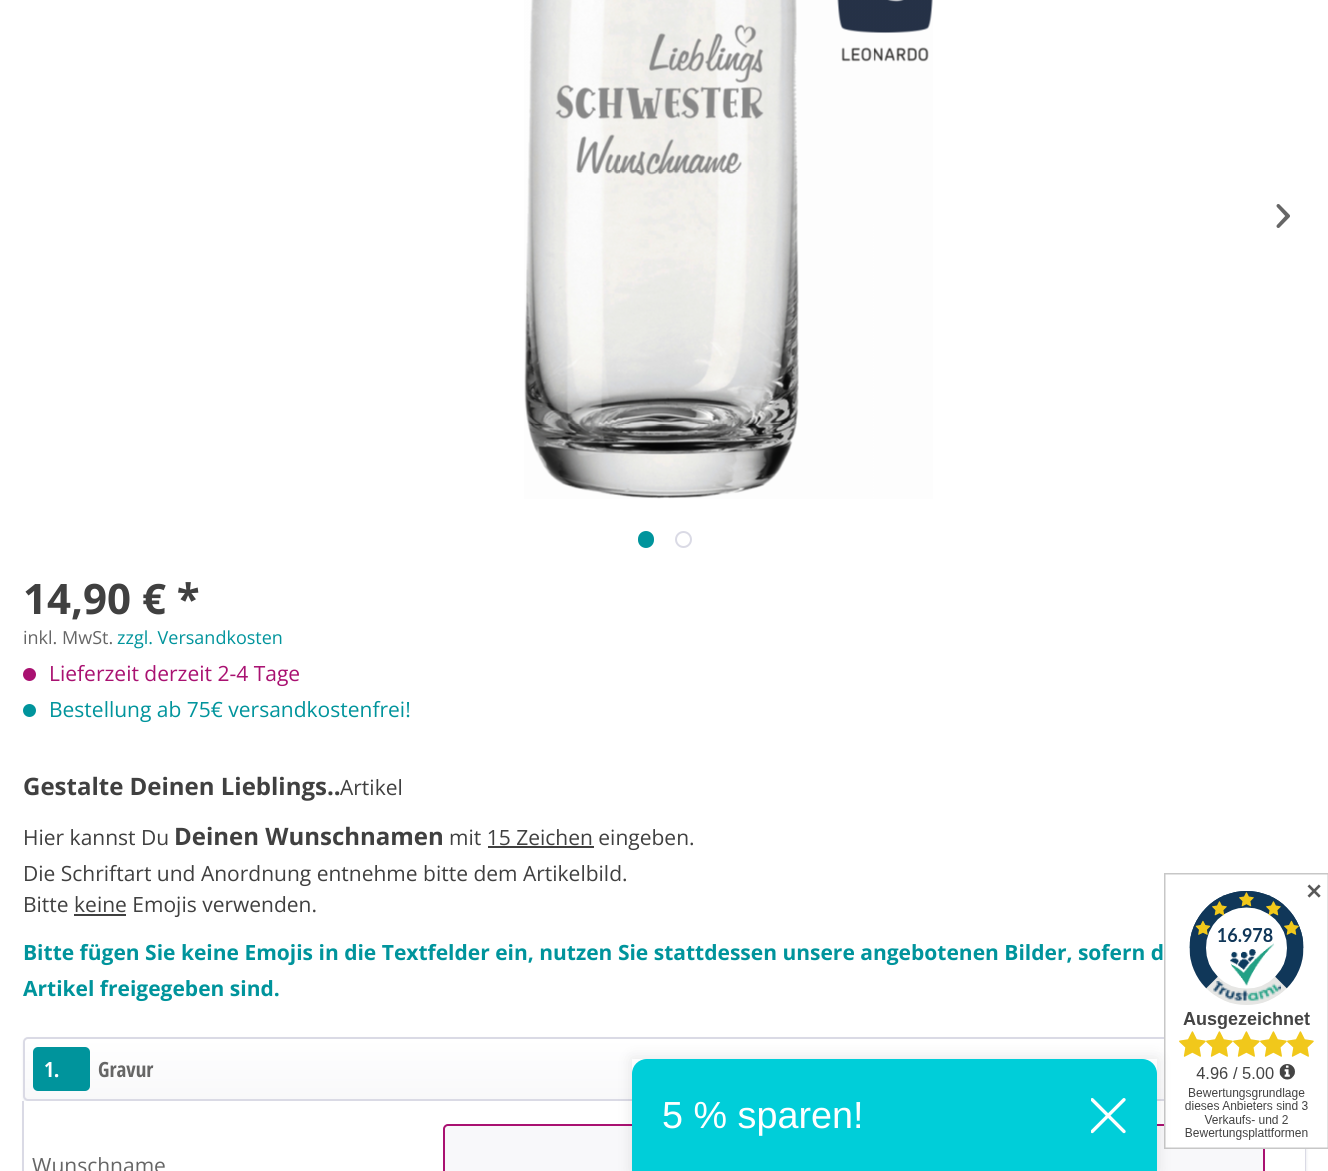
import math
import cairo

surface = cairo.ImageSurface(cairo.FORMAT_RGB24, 1328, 1171)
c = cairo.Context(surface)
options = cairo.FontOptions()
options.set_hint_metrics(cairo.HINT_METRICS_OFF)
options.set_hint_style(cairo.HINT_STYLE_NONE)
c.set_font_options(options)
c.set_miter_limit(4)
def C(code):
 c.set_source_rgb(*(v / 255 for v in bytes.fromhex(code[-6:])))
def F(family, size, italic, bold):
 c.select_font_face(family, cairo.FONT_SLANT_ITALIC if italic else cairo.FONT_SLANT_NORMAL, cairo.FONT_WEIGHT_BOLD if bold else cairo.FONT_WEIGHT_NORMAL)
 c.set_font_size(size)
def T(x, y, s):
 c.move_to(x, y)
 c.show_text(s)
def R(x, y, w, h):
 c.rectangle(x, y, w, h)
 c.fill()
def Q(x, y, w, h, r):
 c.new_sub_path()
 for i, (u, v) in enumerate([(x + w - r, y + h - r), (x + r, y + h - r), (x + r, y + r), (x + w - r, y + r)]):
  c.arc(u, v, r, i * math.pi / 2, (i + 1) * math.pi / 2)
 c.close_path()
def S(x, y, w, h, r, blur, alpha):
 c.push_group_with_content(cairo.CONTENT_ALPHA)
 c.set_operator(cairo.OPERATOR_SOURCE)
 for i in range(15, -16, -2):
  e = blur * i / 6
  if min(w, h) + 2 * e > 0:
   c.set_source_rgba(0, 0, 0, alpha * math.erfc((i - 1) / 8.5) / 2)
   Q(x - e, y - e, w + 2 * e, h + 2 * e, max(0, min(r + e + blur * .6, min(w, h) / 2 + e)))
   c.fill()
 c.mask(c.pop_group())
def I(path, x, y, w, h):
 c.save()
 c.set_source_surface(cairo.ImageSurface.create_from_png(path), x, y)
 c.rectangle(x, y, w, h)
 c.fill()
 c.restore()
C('ffffff')
c.paint()
I('1.png',524,0,409,499)
I('2.png',1276,204,14,24)
C('00949c')
Q(639,532,14,15,7)
c.fill_preserve()
c.stroke()
c.arc(683.5,539.5,7.5,0,2 * math.pi)
C('dadae5')
c.stroke()
F('Open Sans',42,0,1)
C('404040')
T(23,614,'14,90 € *')
F('Open Sans',18,0,0)
C('666666')
T(23,644,'inkl. MwSt.')
C('00949c')
T(117,644,'zzgl. Versandkosten')
C('a91171')
c.new_path()
c.arc(29.5,674.5,6.5,0,2 * math.pi)
c.fill()
F('Open Sans',21,0,0)
T(49,681,'Lieferzeit derzeit 2-4 Tage')
C('00949c')
c.new_path()
c.arc(29.5,710.5,6.5,0,2 * math.pi)
c.fill()
T(49,717,'Bestellung ab 75€ versandkostenfrei!')
F('Open Sans',24,0,1)
C('404040')
T(23,795,'Gestalte Deinen Lieblings..')
F('Open Sans',21,0,0)
T(340,795,'Artikel')
T(23,845,'Hier kannst Du')
F('Open Sans',24,0,1)
T(174,845,'Deinen Wunschnamen')
F('Open Sans',21,0,0)
T(449,845,'mit 15 Zeichen eingeben.')
R(488,846,106,2)
T(23,881,'Die Schriftart und Anordnung entnehme bitte dem Artikelbild.')
T(23,912,'Bitte keine Emojis verwenden.')
R(74,914,52,2)
F('Open Sans',21,0,1)
C('00949c')
T(23,960,'Bitte fügen Sie keine Emojis in die Textfelder ein, nutzen Sie stattdessen unsere angebotenen Bilder, sofern d')
T(23,996,'Artikel freigegeben sind.')
C('eceef1')
S(23,1038,1284,65,5,1,.8)
gradient = cairo.LinearGradient(665,1038,665,1100)
gradient.add_color_stop_rgba(0,1,1,1,1)
gradient.add_color_stop_rgba(1,0.973,0.973,0.98,1)
c.set_source(gradient)
Q(24,1038,1281,62,3)
c.fill()
Q(24,1038,1282,62,4)
C('dadae5')
c.stroke()
C('00949c')
Q(33,1047,57,44,5)
c.fill()
F('Open Sans Condensed',21,0,1)
C('ffffff')
T(44,1077,'1.')
C('666666')
T(98,1077,'Gravur')
C('eceef1')
S(23,1103,1284,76,5,1,.8)
C('ffffff')
R(24,1101,1281,70)
C('dadae5')
c.set_fill_rule(cairo.FILL_RULE_EVEN_ODD)
c.new_path()
c.move_to(22,1101)
c.line_to(1306,1101)
c.line_to(1306,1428)
c.curve_to(1306,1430,1304,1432,1302,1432)
c.line_to(27,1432)
c.curve_to(25,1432,22,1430,22,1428)
c.close_path()
c.move_to(24,1101)
c.line_to(1305,1101)
c.line_to(1305,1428)
c.curve_to(1305,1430,1304,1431,1302,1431)
c.line_to(27,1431)
c.curve_to(25,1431,24,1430,24,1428)
c.close_path()
c.fill()
F('Open Sans',21,0,0)
C('666666')
T(32,1173,'Wunschname')
C('f8f8fa')
Q(444,1125,820,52,4)
c.fill_preserve()
C('a91171')
c.stroke()
I('3.png',1164,873,164,276)
F('DejaVu Sans',21,0,1)
C('595959')
T(1305,899,'✕')
c.save()
c.new_path()
c.move_to(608,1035)
c.line_to(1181,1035)
c.line_to(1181,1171)
c.line_to(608,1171)
c.close_path()
c.move_to(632,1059)
c.line_to(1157,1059)
c.line_to(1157,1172)
c.line_to(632,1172)
c.close_path()
c.clip()
C('000000')
S(632,1059,525,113,0,7.5,.1)
c.restore()
C('00ced9')
c.new_path()
c.move_to(647,1059)
c.line_to(1142,1059)
c.curve_to(1150.5,1059,1157,1065.5,1157,1074)
c.line_to(1157,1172)
c.line_to(632,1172)
c.line_to(632,1074)
c.curve_to(632,1065.5,638.5,1059,647,1059)
c.close_path()
c.fill()
F('Liberation Sans',37.75,0,0)
C('ffffff')
T(662,1128,'5 % sparen!')
I('4.png',1091,1098,35,36)
surface.write_to_png('o.png')
